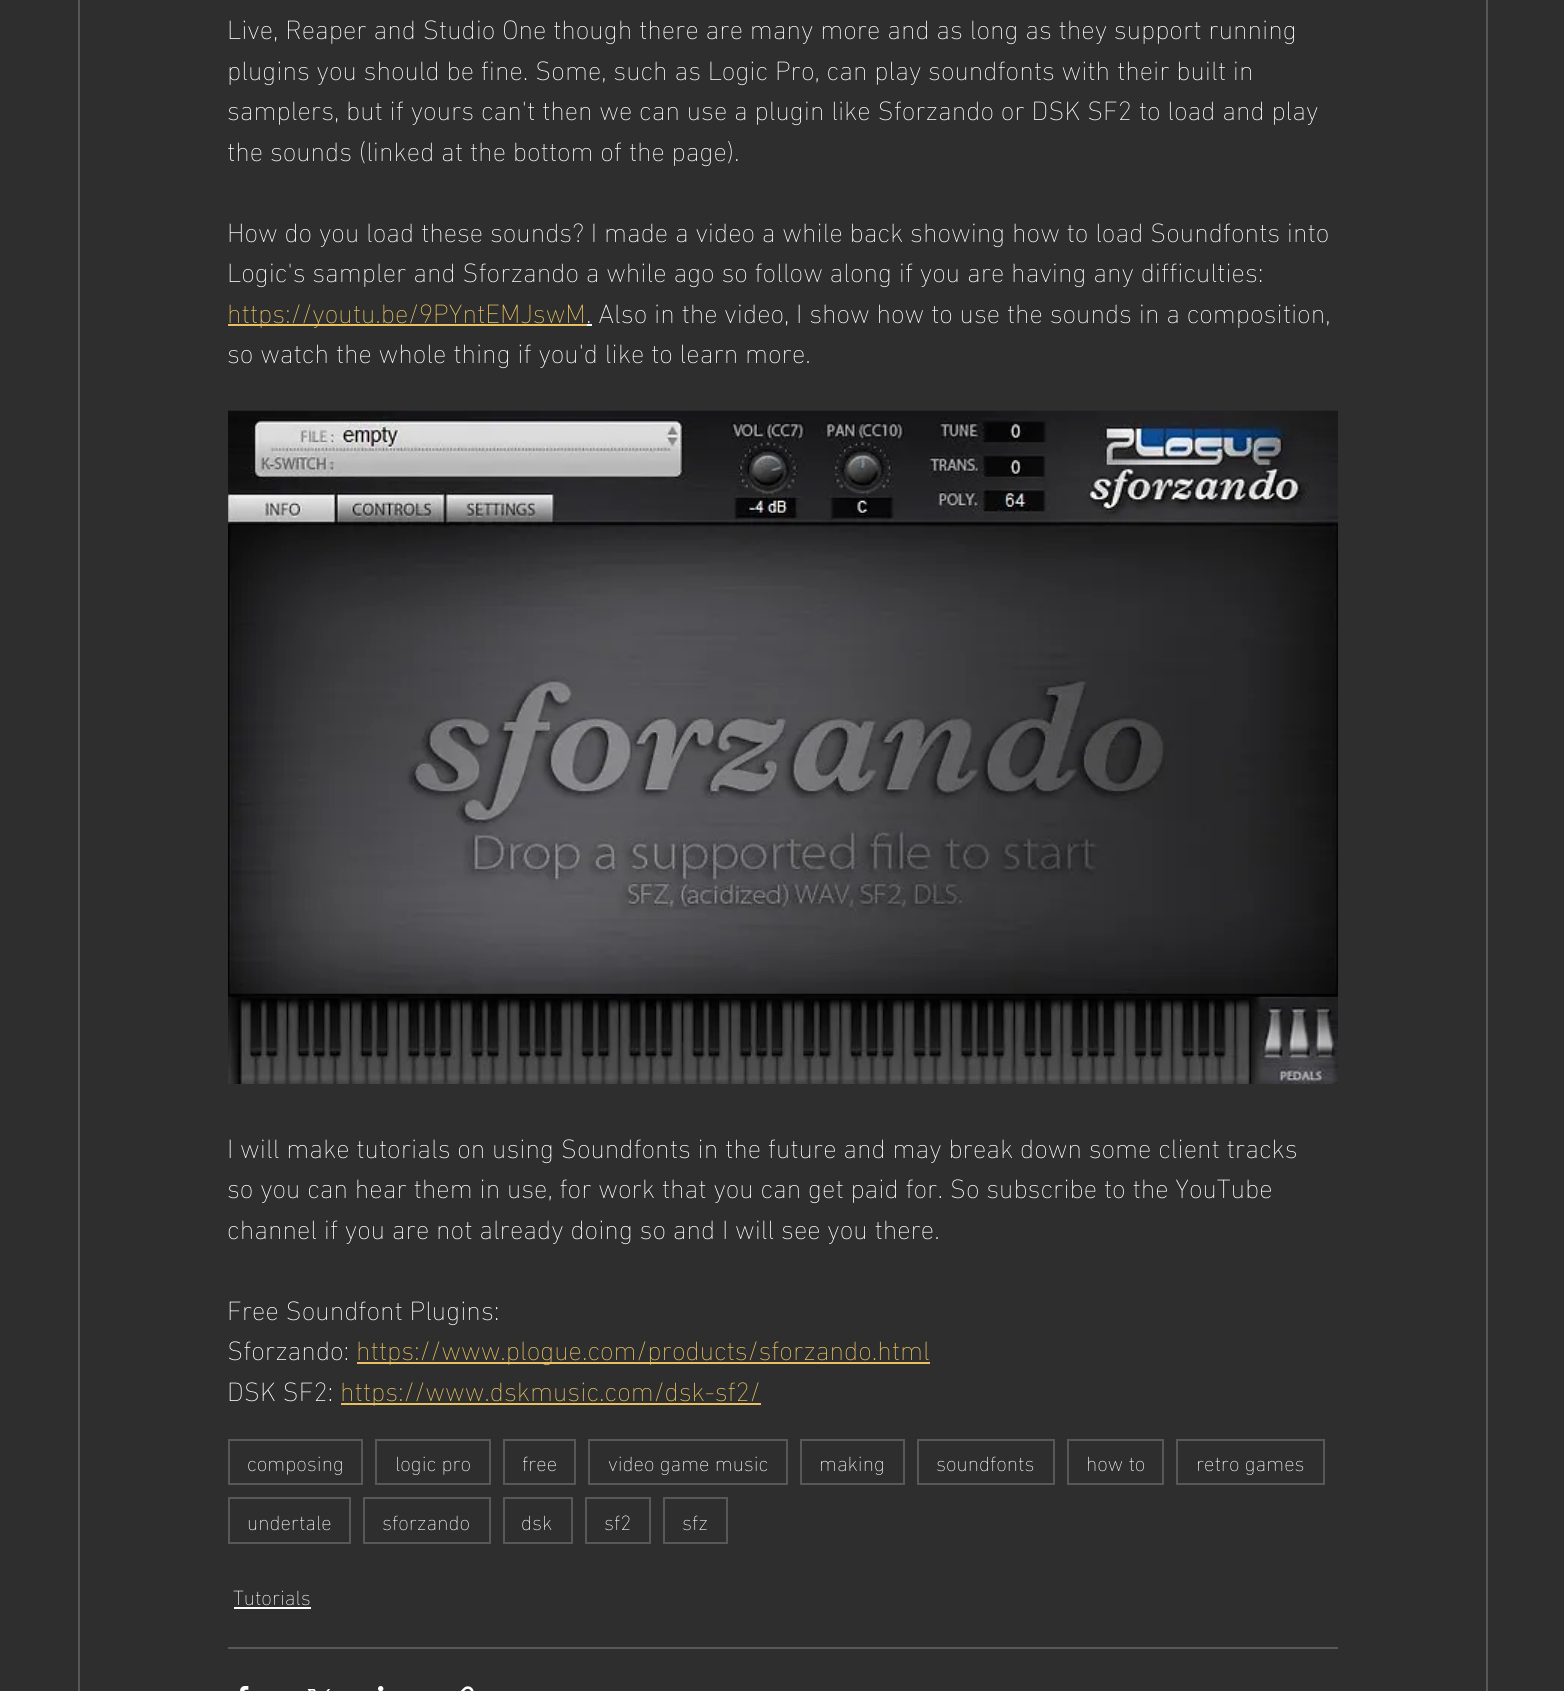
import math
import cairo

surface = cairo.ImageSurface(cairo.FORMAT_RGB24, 1564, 1691)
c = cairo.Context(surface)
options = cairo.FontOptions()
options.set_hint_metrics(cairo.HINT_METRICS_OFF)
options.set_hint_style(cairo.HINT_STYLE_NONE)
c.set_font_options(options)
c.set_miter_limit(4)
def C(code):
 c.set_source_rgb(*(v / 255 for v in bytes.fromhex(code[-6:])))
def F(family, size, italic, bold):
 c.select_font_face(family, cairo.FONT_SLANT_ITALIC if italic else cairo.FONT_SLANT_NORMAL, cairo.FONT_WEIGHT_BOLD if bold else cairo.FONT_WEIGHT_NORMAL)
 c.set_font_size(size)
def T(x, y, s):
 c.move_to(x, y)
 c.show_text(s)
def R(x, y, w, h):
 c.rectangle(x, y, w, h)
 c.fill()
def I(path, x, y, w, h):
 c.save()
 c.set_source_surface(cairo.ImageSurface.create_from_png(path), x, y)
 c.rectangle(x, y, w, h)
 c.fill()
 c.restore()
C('2d2e2d')
c.paint()
c.rectangle(79,-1,1408,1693)
C('565756')
c.stroke()
F('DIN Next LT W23 ExtraLight',27,0,0)
C('ffffff')
T(227,39,'Live, Reaper and Studio One though there are many more and as long as they support running')
T(227,80,'plugins you should be fine. Some, such as Logic Pro, can play soundfonts with their built in')
T(227,120,'samplers, but if yours can\'t then we can use a plugin like Sforzando or DSK SF2 to load and play')
T(227,161,'the sounds (linked at the bottom of the page).')
T(227,242,'How do you load these sounds? I made a video a while back showing how to load Soundfonts into')
T(227,282,'Logic\'s sampler and Sforzando a while ago so follow along if you are having any difficulties:')
C('e8c061')
R(228,324,359,2)
T(227,323,'https://youtu.be/9PYntEMJswM')
C('ffffff')
R(587,324,5,2)
T(586,323,'. Also in the video, I show how to use the sounds in a composition,')
T(227,363,'so watch the whole thing if you\'d like to learn more.')
I('1.png',228,410,1110,674)
T(227,1158,'I will make tutorials on using Soundfonts in the future and may break down some client tracks')
T(227,1198,'so you can hear them in use, for work that you can get paid for. So subscribe to the YouTube')
T(227,1239,'channel if you are not already doing so and I will see you there.')
T(227,1320,'Free Soundfont Plugins:')
T(227,1360,'Sforzando:')
C('e8c061')
R(357,1362,573,2)
T(356,1360,'https://www.plogue.com/products/sforzando.html')
C('ffffff')
T(227,1401,'DSK SF2:')
C('e8c061')
R(341,1403,420,2)
T(340,1401,'https://www.dskmusic.com/dsk-sf2/')
c.rectangle(229,1440,133,44)
C('575857')
c.stroke()
F('DIN Next LT W23 ExtraLight',21,0,0)
C('ffffff')
T(247,1471,'composing')
c.rectangle(376,1440,114,44)
C('575857')
c.stroke()
C('ffffff')
T(395,1471,'logic pro')
c.rectangle(504,1440,71,44)
C('575857')
c.stroke()
C('ffffff')
T(522,1471,'free')
c.rectangle(589,1440,198,44)
C('575857')
c.stroke()
C('ffffff')
T(608,1471,'video game music')
c.rectangle(801,1440,103,44)
C('575857')
c.stroke()
C('ffffff')
T(819,1471,'making')
c.rectangle(918,1440,136,44)
C('575857')
c.stroke()
C('ffffff')
T(936,1471,'soundfonts')
c.rectangle(1068,1440,95,44)
C('575857')
c.stroke()
C('ffffff')
T(1086,1471,'how to')
c.rectangle(1177,1440,147,44)
C('575857')
c.stroke()
C('ffffff')
T(1196,1471,'retro games')
c.rectangle(229,1498,121,45)
C('575857')
c.stroke()
C('ffffff')
T(247,1530,'undertale')
c.rectangle(364,1498,126,45)
C('575857')
c.stroke()
C('ffffff')
T(382,1530,'sforzando')
c.rectangle(504,1498,68,45)
C('575857')
c.stroke()
C('ffffff')
T(521,1530,'dsk')
c.rectangle(586,1498,64,45)
C('575857')
c.stroke()
C('ffffff')
T(604,1530,'sf2')
c.rectangle(664,1498,63,45)
C('575857')
c.stroke()
C('ffffff')
T(682,1530,'sfz')
T(233,1605,'Tutorials')
R(234,1607,77,2)
C('575857')
R(228,1647,1110,2)
I('2.png',240,1686,9,5)
I('3.png',307,1689,23,2)
I('4.png',378,1686,6,5)
I('5.png',460,1686,14,5)
surface.write_to_png('o.png')
